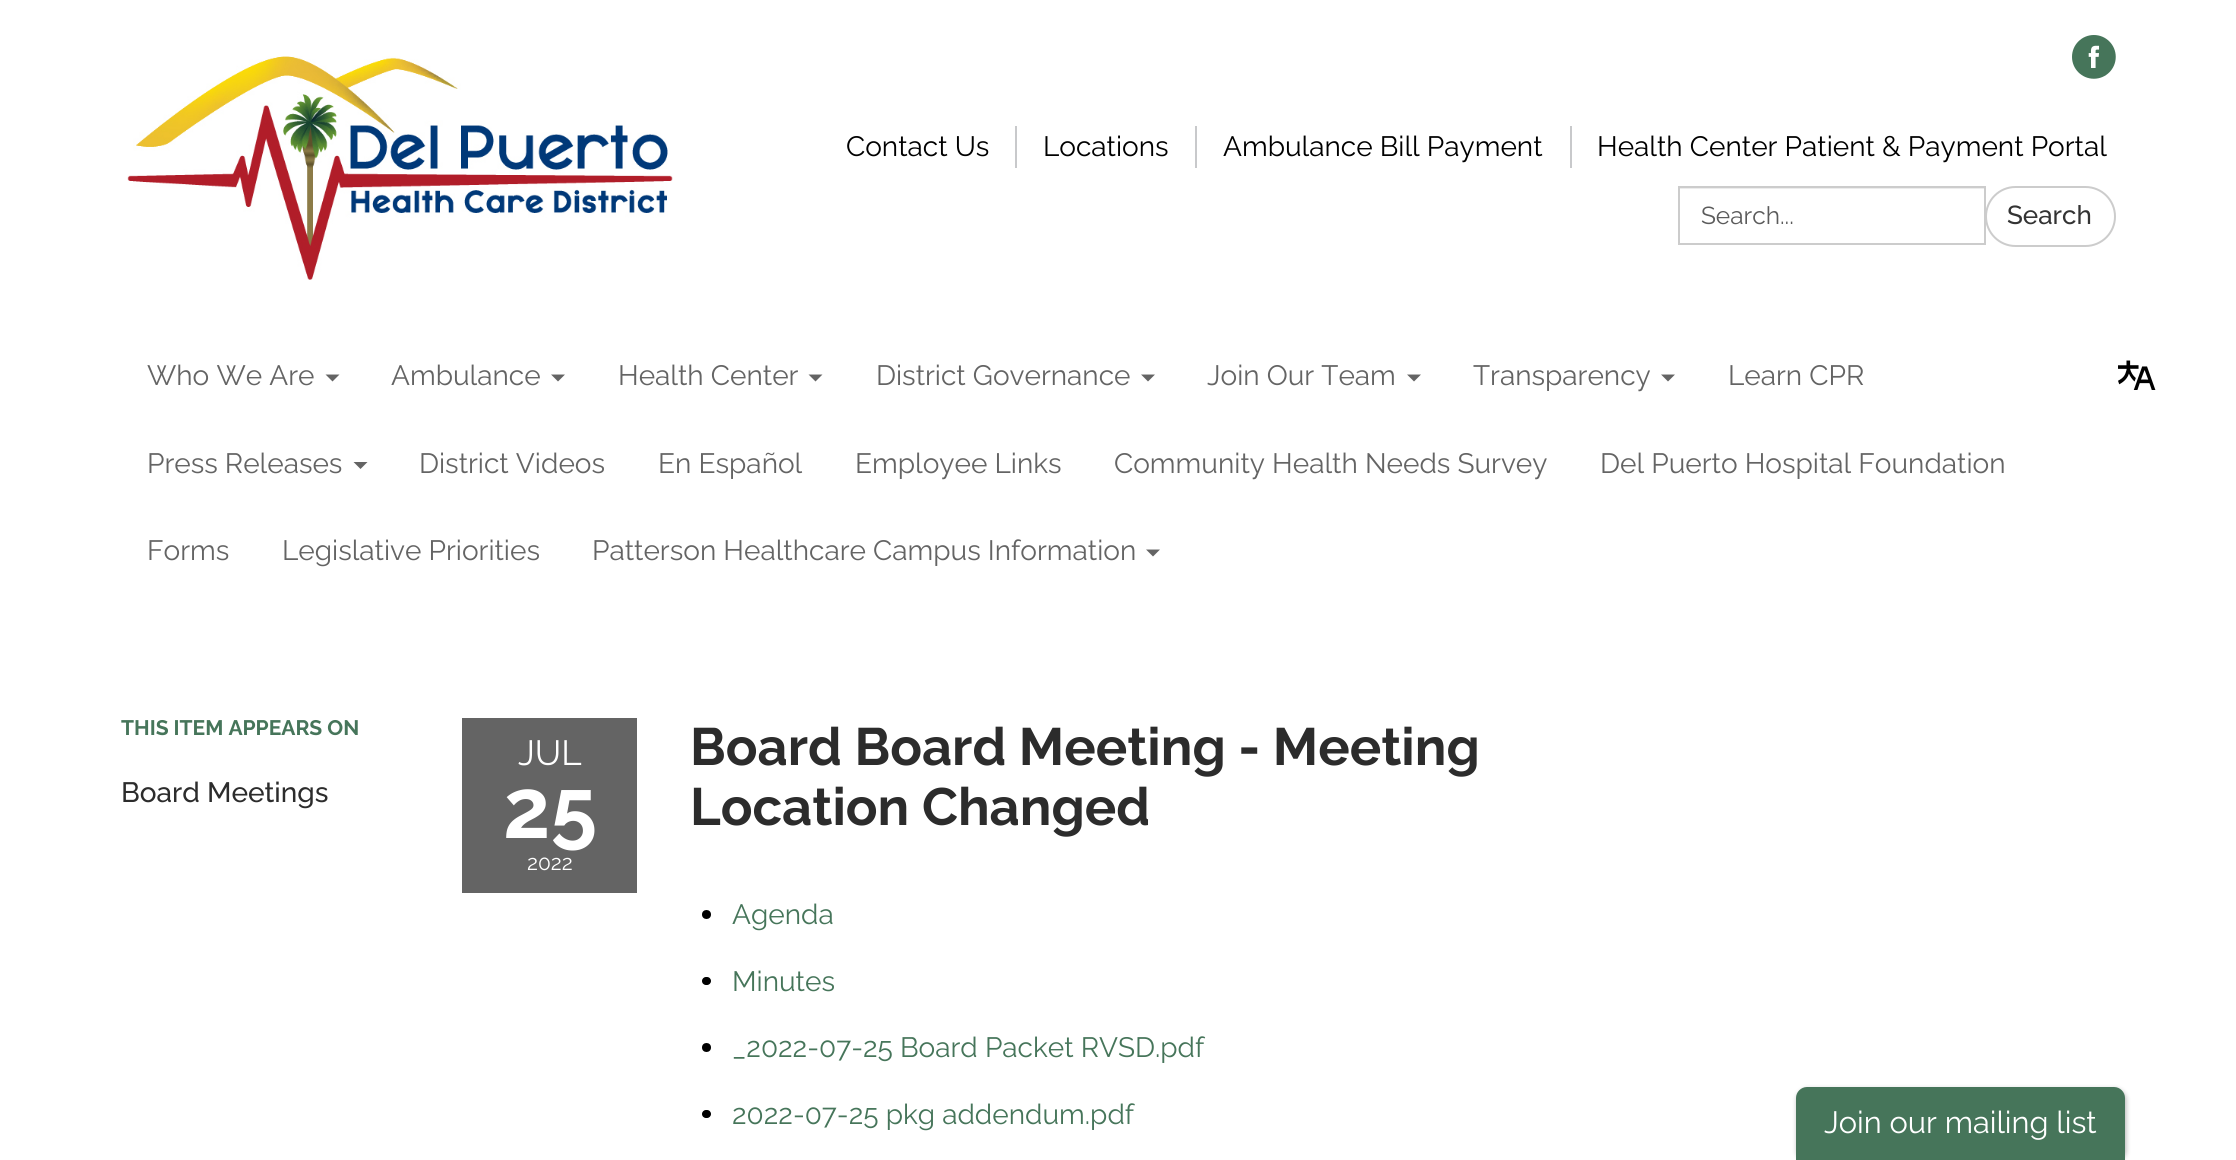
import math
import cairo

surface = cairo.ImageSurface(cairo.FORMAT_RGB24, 2236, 1160)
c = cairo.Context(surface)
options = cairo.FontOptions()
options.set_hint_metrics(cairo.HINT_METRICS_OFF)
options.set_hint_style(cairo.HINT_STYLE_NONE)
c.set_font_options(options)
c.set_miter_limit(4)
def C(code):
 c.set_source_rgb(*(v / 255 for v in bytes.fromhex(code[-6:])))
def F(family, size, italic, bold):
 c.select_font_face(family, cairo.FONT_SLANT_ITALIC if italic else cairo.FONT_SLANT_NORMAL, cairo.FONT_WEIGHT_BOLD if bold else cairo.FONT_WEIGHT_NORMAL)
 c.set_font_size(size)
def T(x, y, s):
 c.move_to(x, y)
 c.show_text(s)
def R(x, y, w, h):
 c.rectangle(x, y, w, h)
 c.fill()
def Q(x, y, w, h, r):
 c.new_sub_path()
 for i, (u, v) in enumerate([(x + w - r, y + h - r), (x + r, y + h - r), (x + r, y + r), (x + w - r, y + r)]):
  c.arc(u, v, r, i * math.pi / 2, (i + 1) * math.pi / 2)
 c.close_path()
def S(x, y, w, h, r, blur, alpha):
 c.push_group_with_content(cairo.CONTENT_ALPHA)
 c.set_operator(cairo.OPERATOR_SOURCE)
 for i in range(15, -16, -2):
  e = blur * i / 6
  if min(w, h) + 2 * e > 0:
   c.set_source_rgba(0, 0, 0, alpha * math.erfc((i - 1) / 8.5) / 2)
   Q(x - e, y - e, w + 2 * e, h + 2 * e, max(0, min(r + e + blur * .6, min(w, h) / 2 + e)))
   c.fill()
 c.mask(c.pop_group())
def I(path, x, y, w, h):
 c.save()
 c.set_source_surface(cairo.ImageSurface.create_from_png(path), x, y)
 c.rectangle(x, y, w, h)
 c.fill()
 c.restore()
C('ffffff')
c.paint()
I('1.png',127,56,546,224)
I('2.png',2072,35,44,44)
F('Raleway',28,0,0)
C('000000')
T(846,156,'Contact Us')
C('c8c9cb')
R(1015,126,2,42)
C('000000')
T(1043,156,'Locations')
C('c8c9cb')
R(1195,126,2,42)
C('000000')
T(1223,156,'Ambulance Bill Payment')
C('c8c9cb')
R(1570,126,2,42)
C('000000')
T(1597,156,'Health Center Patient & Payment Portal')
C('ececec')
R(1680,188,305,1)
c.rectangle(1679,187,306,57)
C('cccccc')
c.stroke()
F('Raleway',24.5,0,0)
C('5b5b5b')
T(1701,224,'Search...')
C('ffffff')
Q(1986,187,129,59,29.5)
c.fill_preserve()
C('cccccc')
c.stroke()
F('Raleway Medium',26,0,0)
C('333333')
T(2007,224,'Search')
F('Raleway',28,0,0)
C('646464')
T(147,385,'Who We Are')
c.new_path()
c.move_to(325.5,374.5)
c.line_to(339.5,374.5)
c.line_to(332.5,381.5)
c.close_path()
c.fill()
T(391,385,'Ambulance')
c.new_path()
c.move_to(551,374.5)
c.line_to(565,374.5)
c.line_to(558,381.5)
c.close_path()
c.fill()
T(618,385,'Health Center')
c.new_path()
c.move_to(808.5,374.5)
c.line_to(822.5,374.5)
c.line_to(815.5,381.5)
c.close_path()
c.fill()
T(876,385,'District Governance')
c.new_path()
c.move_to(1141,374.5)
c.line_to(1155,374.5)
c.line_to(1148,381.5)
c.close_path()
c.fill()
T(1207,385,'Join Our Team')
c.new_path()
c.move_to(1407,374.5)
c.line_to(1421,374.5)
c.line_to(1414,381.5)
c.close_path()
c.fill()
T(1473,385,'Transparency')
c.new_path()
c.move_to(1661,374.5)
c.line_to(1675,374.5)
c.line_to(1668,381.5)
c.close_path()
c.fill()
T(1728,385,'Learn CPR')
T(147,473,'Press Releases')
c.new_path()
c.move_to(353.5,462)
c.line_to(367.5,462)
c.line_to(360.5,469)
c.close_path()
c.fill()
T(419,473,'District Videos')
T(658,473,'En Español')
T(855,473,'Employee Links')
T(1114,473,'Community Health Needs Survey')
T(1600,473,'Del Puerto Hospital Foundation')
T(147,560,'Forms')
T(282,560,'Legislative Priorities')
T(592,560,'Patterson Healthcare Campus Information')
c.new_path()
c.move_to(1146,549.5)
c.line_to(1160,549.5)
c.line_to(1153,556.5)
c.close_path()
c.fill()
I('3.png',2118,360,38,30)
F('Raleway',21,0,1)
C('46755a')
T(121,735,'THIS ITEM APPEARS ON')
F('Raleway Medium',28,0,0)
C('2c2c2c')
T(121,802,'Board Meetings')
C('646464')
R(462,718,175,175)
F('Raleway',35,0,0)
C('ffffff')
T(518,765,'JUL')
F('Raleway',84,0,1)
T(503,838,'25')
F('Raleway',21,0,0)
T(527,870,'2022')
F('Raleway',52.5,0,1)
C('2c2c2c')
T(690,765,'Board Board Meeting - Meeting')
T(690,825,'Location Changed')
C('000000')
c.new_path()
c.arc(706.5,914.5,4.5,0,2 * math.pi)
c.fill()
F('Raleway',28,0,0)
C('46755a')
T(732,924,'Agenda')
C('000000')
Q(702,977,9,8,4)
c.fill()
C('46755a')
T(732,991,'Minutes')
C('000000')
c.new_path()
c.arc(706.5,1047.5,4.5,0,2 * math.pi)
c.fill()
C('46755a')
T(732,1057,'_2022-07-25 Board Packet RVSD.pdf')
C('000000')
Q(702,1110,9,8,4)
c.fill()
C('46755a')
T(732,1124,'2022-07-25 pkg addendum.pdf')
C('000000')
S(1797,1089,329,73,11,2.5,.3)
C('46755a')
c.new_path()
c.move_to(1807,1087)
c.line_to(2114,1087)
c.curve_to(2120,1087,2125,1092,2125,1098)
c.line_to(2125,1160)
c.line_to(1796,1160)
c.line_to(1796,1098)
c.curve_to(1796,1092,1801,1087,1807,1087)
c.close_path()
c.fill()
F('Raleway',30.75,0,0)
C('ffffff')
T(1824,1133,'Join our mailing list')
surface.write_to_png('o.png')
